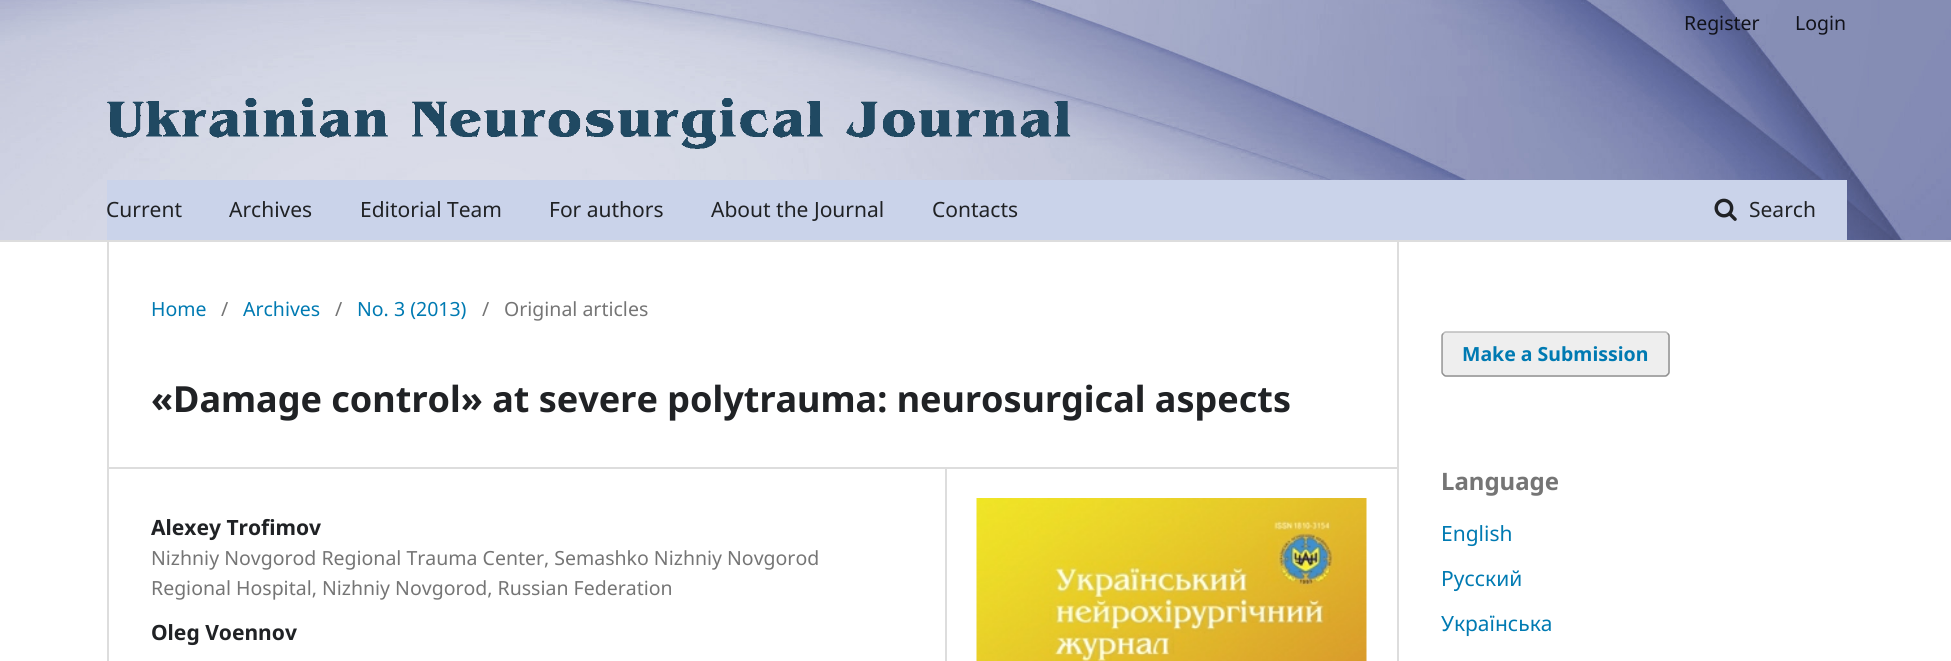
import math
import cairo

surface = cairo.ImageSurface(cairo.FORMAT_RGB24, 1951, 661)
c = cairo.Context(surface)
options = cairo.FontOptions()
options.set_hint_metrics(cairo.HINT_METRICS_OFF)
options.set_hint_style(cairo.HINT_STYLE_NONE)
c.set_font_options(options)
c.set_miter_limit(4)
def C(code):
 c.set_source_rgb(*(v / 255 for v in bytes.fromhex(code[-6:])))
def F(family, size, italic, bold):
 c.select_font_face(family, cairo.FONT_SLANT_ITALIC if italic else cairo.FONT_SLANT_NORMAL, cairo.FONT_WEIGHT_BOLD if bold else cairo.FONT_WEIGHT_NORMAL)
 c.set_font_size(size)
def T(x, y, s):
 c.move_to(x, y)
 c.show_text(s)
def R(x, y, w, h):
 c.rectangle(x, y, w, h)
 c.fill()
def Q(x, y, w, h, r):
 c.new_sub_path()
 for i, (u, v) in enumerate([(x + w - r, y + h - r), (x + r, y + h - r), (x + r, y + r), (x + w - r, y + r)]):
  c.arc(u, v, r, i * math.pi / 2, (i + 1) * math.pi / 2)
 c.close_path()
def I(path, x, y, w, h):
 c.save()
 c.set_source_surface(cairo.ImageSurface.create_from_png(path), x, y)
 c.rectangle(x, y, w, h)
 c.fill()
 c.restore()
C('ffffff')
c.paint()
I('1.png',0,0,1951,240)
C('dddddd')
R(0,240,1951,2)
C('cad3ea')
R(107,180,1740,60)
F('Noto Sans',19.5,0,0)
C('11121a')
T(1684,30,'Register')
T(1795,30,'Login')
F('Noto Sans',21,0,0)
C('202225')
T(106,217,'Current')
T(229,217,'Archives')
T(360,217,'Editorial Team')
T(549,217,'For authors')
T(711,217,'About the Journal')
T(932,217,'Contacts')
I('2.png',1714,198,23,23)
T(1749,217,'Search')
I('3.png',107,98,964,51)
C('dddddd')
R(107,467,1290,2)
R(107,242,2,419)
F('Noto Sans',19.5,0,0)
C('007ab2')
T(151,316,'Home')
C('757575')
T(221,316,'/')
C('007ab2')
T(243,316,'Archives')
C('757575')
T(335,316,'/')
C('007ab2')
T(357,316,'No. 3 (2013)')
C('757575')
T(482,316,'/')
T(504,316,'Original articles')
F('Noto Sans',36,0,1)
C('202225')
T(151,412,'«Damage control» at severe polytrauma: neurosurgical aspects')
C('dddddd')
R(945,468,2,193)
F('Noto Sans',21,0,1)
C('202225')
T(151,535,'Alexey Trofimov')
F('Noto Sans',19.5,0,0)
C('757575')
T(151,565,'Nizhniy Novgorod Regional Trauma Center, Semashko Nizhniy Novgorod')
T(151,595,'Regional Hospital, Nizhniy Novgorod, Russian Federation')
F('Noto Sans',21,0,1)
C('202225')
T(151,640,'Oleg Voennov')
I('4.png',976,498,391,163)
C('dddddd')
R(1397,242,2,419)
C('eeeeee')
Q(1442,332,228,45,5)
c.fill()
c.new_path()
c.move_to(1443.5,333.5)
c.curve_to(1444,332.5,1445,332,1446,332)
c.line_to(1665,332)
c.curve_to(1666,332,1667,332.5,1667.5,333.5)
C('bbbbbb')
c.set_line_width(1.5)
c.stroke()
c.new_path()
c.move_to(1667.5,333.5)
c.curve_to(1668.5,334,1669,335,1669,336)
c.line_to(1669,372)
c.curve_to(1669,373,1668.5,374,1667.5,374.5)
c.curve_to(1667,375.5,1666,376,1665,376)
c.line_to(1446,376)
c.curve_to(1445,376,1444,375.5,1443.5,374.5)
c.curve_to(1442.5,374,1442,373,1442,372)
c.line_to(1442,336)
c.curve_to(1442,335,1442.5,334,1443.5,333.5)
c.set_source_rgba(0,0,0,0.4)
c.stroke()
F('Noto Sans',19.5,0,1)
C('007ab2')
T(1462,361,'Make a Submission')
F('Noto Sans',24,0,1)
C('757575')
T(1441,490,'Language')
F('Noto Sans',21,0,0)
C('007ab2')
T(1441,541,'English')
T(1441,586,'Русский')
T(1441,631,'Українська')
surface.write_to_png('o.png')
